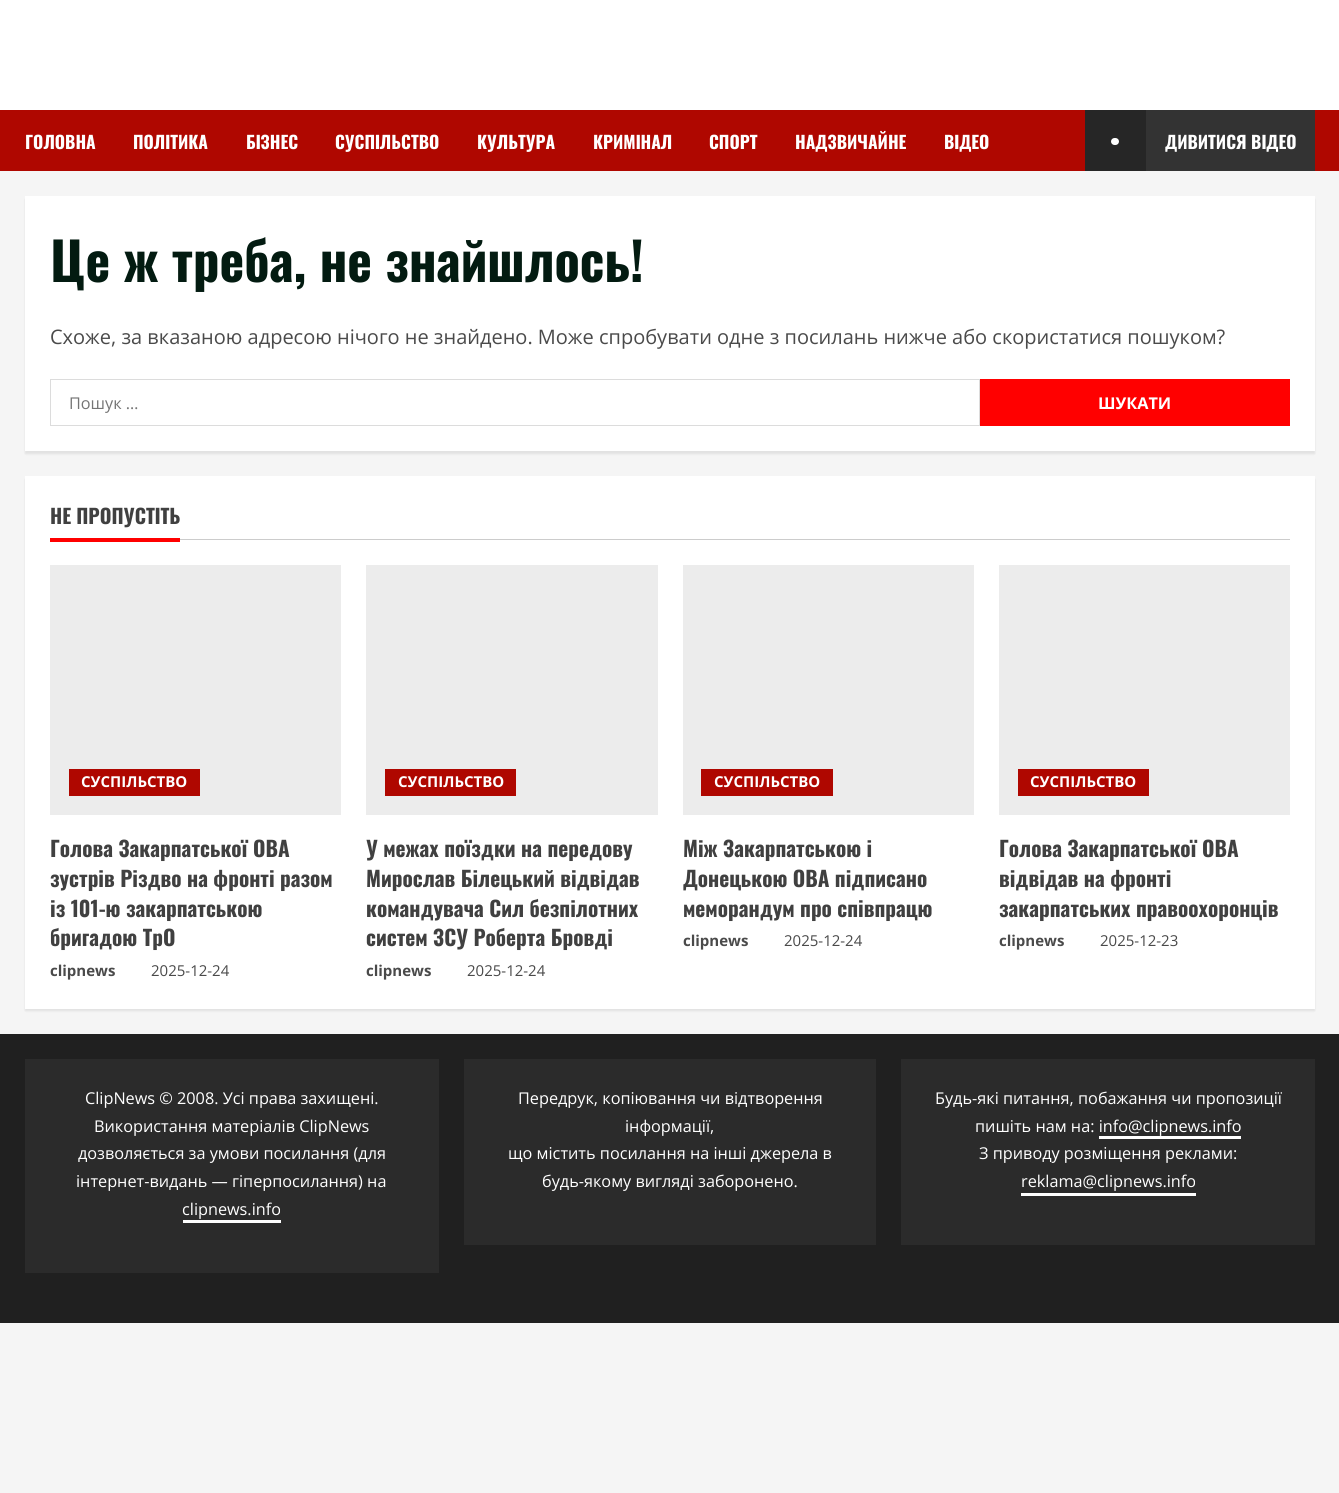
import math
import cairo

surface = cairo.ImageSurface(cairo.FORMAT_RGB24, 1339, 1493)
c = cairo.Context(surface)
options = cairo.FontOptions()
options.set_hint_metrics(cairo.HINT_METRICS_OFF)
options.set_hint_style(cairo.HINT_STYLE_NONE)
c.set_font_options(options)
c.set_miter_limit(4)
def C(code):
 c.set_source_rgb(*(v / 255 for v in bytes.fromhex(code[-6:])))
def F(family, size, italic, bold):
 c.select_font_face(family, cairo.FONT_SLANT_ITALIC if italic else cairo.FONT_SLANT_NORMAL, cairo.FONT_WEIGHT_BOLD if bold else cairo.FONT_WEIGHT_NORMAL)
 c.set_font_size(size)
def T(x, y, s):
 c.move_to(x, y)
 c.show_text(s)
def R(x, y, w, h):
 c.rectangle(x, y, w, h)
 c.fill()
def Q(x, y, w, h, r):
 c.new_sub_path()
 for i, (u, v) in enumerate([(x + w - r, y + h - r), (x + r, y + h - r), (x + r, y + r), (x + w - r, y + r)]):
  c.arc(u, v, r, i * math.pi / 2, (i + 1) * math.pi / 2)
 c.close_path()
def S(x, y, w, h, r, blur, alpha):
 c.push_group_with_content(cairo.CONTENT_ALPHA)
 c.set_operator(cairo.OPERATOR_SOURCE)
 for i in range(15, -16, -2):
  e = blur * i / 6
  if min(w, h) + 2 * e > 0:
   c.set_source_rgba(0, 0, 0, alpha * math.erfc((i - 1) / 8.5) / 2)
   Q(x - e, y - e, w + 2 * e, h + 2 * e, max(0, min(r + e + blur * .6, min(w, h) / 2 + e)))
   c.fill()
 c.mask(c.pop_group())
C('f5f5f5')
c.paint()
C('ffffff')
R(0,0,1339,110)
C('af0700')
R(0,110,1339,61)
F('Oswald',17.5,0,1)
C('ffffff')
T(25,149,'ГОЛОВНА')
T(133,149,'ПОЛІТИКА')
T(246,149,'БІЗНЕС')
T(335,149,'СУСПІЛЬСТВО')
T(477,149,'КУЛЬТУРА')
T(593,149,'КРИМІНАЛ')
T(709,149,'СПОРТ')
T(795,149,'НАДЗВИЧАЙНЕ')
T(944,149,'ВІДЕО')
C('333333')
R(1146,110,169,61)
C('262626')
R(1085,110,61,61)
C('ffffff')
Q(1111,138,8,7,3.5)
c.fill()
T(1165,149,'ДИВИТИСЯ ВІДЕО')
C('000000')
S(25,199,1290,255,0,1,.08)
C('ffffff')
R(25,196,1290,255)
F('Oswald',52.5,0,1)
C('031b11')
T(50,282,'Це ж треба, не знайшлось!')
F('Open Sans',20,0,0)
C('4a4a4a')
T(50,344,'Схоже, за вказаною адресою нічого не знайдено. Може спробувати одне з посилань нижче або скористатися пошуком?')
c.rectangle(50.5,379.5,929,46)
C('dcdcdc')
c.set_line_width(1)
c.stroke()
F('Open Sans',16.25,0,0)
C('757575')
T(69,409,'Пошук …')
C('ff0000')
R(980,379,310,47)
F('Open Sans',16.25,0,1)
C('ffffff')
T(1098,409,'ШУКАТИ')
C('000000')
S(25,479,1290,532,0,1,.08)
C('ffffff')
R(25,476,1290,533)
C('cccccc')
R(180,539,1110,1)
F('Oswald',20,0,1)
C('404040')
T(50,524,'НЕ ПРОПУСТІТЬ')
C('ff0000')
R(50,538,130,4)
C('ececec')
R(50,565,291,250)
C('af0700')
R(69,769,131,27)
F('Open Sans',15,0,1)
C('ffffff')
T(81,787,'СУСПІЛЬСТВО')
F('Oswald',21.25,0,1)
C('404040')
T(50,857,'Голова Закарпатської ОВА')
T(50,887,'зустрів Різдво на фронті разом')
T(50,917,'із 101-ю закарпатською')
T(50,946,'бригадою ТрО')
F('Open Sans',15,0,1)
C('4a4a4a')
T(50,976,'clipnews')
F('Open Sans',15,0,0)
T(151,976,'2025-12-24')
C('ececec')
R(366,565,292,250)
C('af0700')
R(385,769,131,27)
F('Open Sans',15,0,1)
C('ffffff')
T(398,787,'СУСПІЛЬСТВО')
F('Oswald',21.25,0,1)
C('404040')
T(366,857,'У межах поїздки на передову')
T(366,887,'Мирослав Білецький відвідав')
T(366,917,'командувача Сил безпілотних')
T(366,946,'систем ЗСУ Роберта Бровді')
F('Open Sans',15,0,1)
C('4a4a4a')
T(366,976,'clipnews')
F('Open Sans',15,0,0)
T(467,976,'2025-12-24')
C('ececec')
R(683,565,291,250)
C('af0700')
R(701,769,132,27)
F('Open Sans',15,0,1)
C('ffffff')
T(714,787,'СУСПІЛЬСТВО')
F('Oswald',21.25,0,1)
C('404040')
T(683,857,'Між Закарпатською і')
T(683,887,'Донецькою ОВА підписано')
T(683,917,'меморандум про співпрацю')
F('Open Sans',15,0,1)
C('4a4a4a')
T(683,946,'clipnews')
F('Open Sans',15,0,0)
T(784,946,'2025-12-24')
C('ececec')
R(999,565,291,250)
C('af0700')
R(1018,769,131,27)
F('Open Sans',15,0,1)
C('ffffff')
T(1030,787,'СУСПІЛЬСТВО')
F('Oswald',21.25,0,1)
C('404040')
T(999,857,'Голова Закарпатської ОВА')
T(999,887,'відвідав на фронті')
T(999,917,'закарпатських правоохоронців')
F('Open Sans',15,0,1)
C('4a4a4a')
T(999,946,'clipnews')
F('Open Sans',15,0,0)
T(1100,946,'2025-12-23')
C('202020')
R(0,1034,1339,289)
C('2b2b2b')
R(25,1059,414,214)
F('Open Sans',16.25,0,0)
C('ffffff')
T(85,1104,'ClipNews © 2008. Усі права захищені.')
T(94,1132,'Використання матеріалів ClipNews')
T(78,1159,'дозволяється за умови посилання (для')
T(76,1187,'інтернет-видань — гіперпосилання) на')
T(182,1215,'clipnews.info')
R(183,1220,98,3)
C('2b2b2b')
R(464,1059,412,186)
C('ffffff')
T(518,1104,'Передрук, копіювання чи відтворення')
T(625,1132,'інформації,')
T(508,1159,'що містить посилання на інші джерела в')
T(542,1187,'будь-якому вигляді заборонено.')
C('2b2b2b')
R(901,1059,414,186)
C('ffffff')
T(935,1104,'Будь-які питання, побажання чи пропозиції')
T(975,1132,'пишіть нам на: info@clipnews.info')
R(1099,1136,142,3)
T(979,1159,'З приводу розміщення реклами:')
T(1021,1187,'reklama@clipnews.info')
R(1021,1193,175,3)
surface.write_to_png('o.png')
